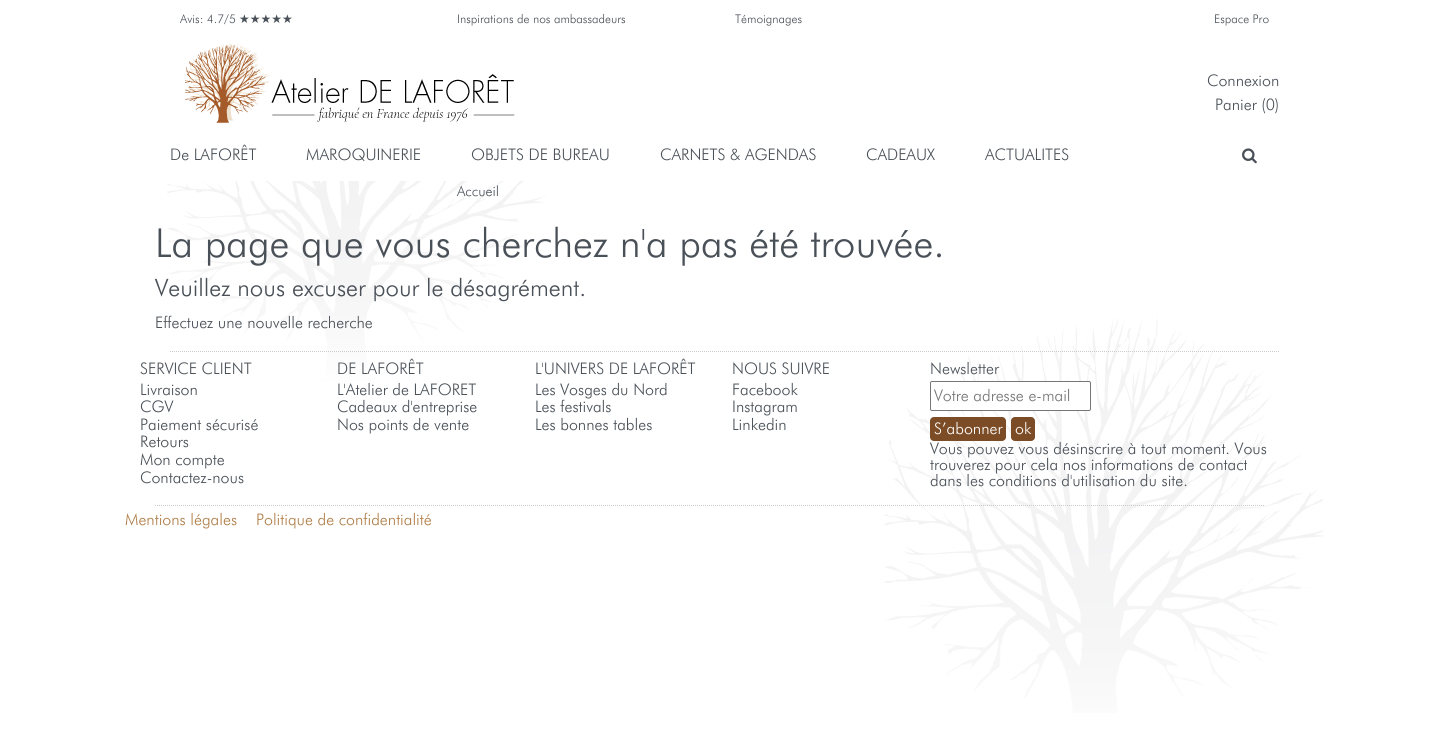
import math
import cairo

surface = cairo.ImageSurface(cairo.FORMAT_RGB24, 1449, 746)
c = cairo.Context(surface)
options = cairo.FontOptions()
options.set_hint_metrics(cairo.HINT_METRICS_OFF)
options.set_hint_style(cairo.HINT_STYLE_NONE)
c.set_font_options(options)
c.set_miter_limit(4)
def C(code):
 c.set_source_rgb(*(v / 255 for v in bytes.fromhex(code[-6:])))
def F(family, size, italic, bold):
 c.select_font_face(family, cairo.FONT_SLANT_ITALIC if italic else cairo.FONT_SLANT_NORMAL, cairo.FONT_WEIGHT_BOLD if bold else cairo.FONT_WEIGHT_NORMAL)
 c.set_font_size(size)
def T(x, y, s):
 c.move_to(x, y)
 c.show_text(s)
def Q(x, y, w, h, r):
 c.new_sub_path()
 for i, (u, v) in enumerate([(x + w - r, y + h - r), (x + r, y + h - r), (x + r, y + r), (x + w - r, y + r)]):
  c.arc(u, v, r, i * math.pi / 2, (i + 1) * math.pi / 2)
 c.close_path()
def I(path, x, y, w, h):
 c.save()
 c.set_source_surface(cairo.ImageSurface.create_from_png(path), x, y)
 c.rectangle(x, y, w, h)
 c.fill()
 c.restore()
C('ffffff')
c.paint()
I('1.png',167,181,1156,532)
F('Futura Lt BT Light',12,0,0)
C('495057')
T(180,23,'Avis: 4.7/5')
F('DejaVu Sans',12,0,0)
T(239,23,'★★★★★')
F('Futura Lt BT Light',12,0,0)
T(457,23,'Inspirations de nos ambassadeurs')
T(735,23,'Témoignages')
T(1214,23,'Espace Pro')
I('2.png',185,44,330,79)
F('Futura Lt BT Light',16,0,0)
T(1207,86,'Connexion')
T(1215,110,'Panier (0)')
T(170,160,'De LAFORÊT')
T(306,160,'MAROQUINERIE')
T(471,160,'OBJETS DE BUREAU')
T(660,160,'CARNETS & AGENDAS')
T(866,160,'CADEAUX')
T(985,160,'ACTUALITES')
I('3.png',1242,148,15,16)
F('Futura Lt BT Light',14,0,0)
T(457,196,'Accueil')
F('Futura Lt BT Light',40,0,0)
T(155,257,'La page que vous cherchez n\'a pas été trouvée.')
F('Futura Lt BT Light',24,0,0)
T(155,296,'Veuillez nous excuser pour le désagrément.')
F('Futura Lt BT Light',16,0,0)
T(155,328,'Effectuez une nouvelle recherche')
c.new_path()
c.move_to(170,351.5)
c.line_to(1280,351.5)
C('cccccc')
c.set_line_width(1)
c.set_dash([1,1])
c.stroke()
C('495057')
T(140,374,'SERVICE CLIENT')
T(140,395,'Livraison')
T(140,412,'CGV')
T(140,430,'Paiement sécurisé')
T(140,447,'Retours')
T(140,465,'Mon compte')
T(140,483,'Contactez-nous')
T(337,374,'DE LAFORÊT')
T(337,395,'L\'Atelier de LAFORET')
T(337,412,'Cadeaux d\'entreprise')
T(337,430,'Nos points de vente')
T(535,374,'L\'UNIVERS DE LAFORÊT')
T(535,395,'Les Vosges du Nord')
T(535,412,'Les festivals')
T(535,430,'Les bonnes tables')
T(732,374,'NOUS SUIVRE')
T(732,395,'Facebook')
T(732,412,'Instagram')
T(732,430,'Linkedin')
T(930,374,'Newsletter')
C('ffffff')
Q(930.5,381.5,160,29,1.5)
c.fill_preserve()
C('767676')
c.set_dash([])
c.stroke()
C('757575')
T(934,401,'Votre adresse e-mail')
C('7b4c25')
Q(930,417,76,24,4)
c.fill()
C('ffffff')
T(934,434,'S’abonner')
C('7b4c25')
Q(1011,417,24,24,4)
c.fill()
C('ffffff')
T(1015,434,'ok')
C('495057')
T(930,454,'Vous pouvez vous désinscrire à tout moment. Vous')
T(930,470,'trouverez pour cela nos informations de contact')
T(930,486,'dans les conditions d\'utilisation du site.')
c.new_path()
c.move_to(155,505.5)
c.line_to(1265,505.5)
C('cccccc')
c.set_dash([1,1])
c.stroke()
C('b07e48')
T(125,525,'Mentions légales')
T(256,525,'Politique de confidentialité')
surface.write_to_png('o.png')
